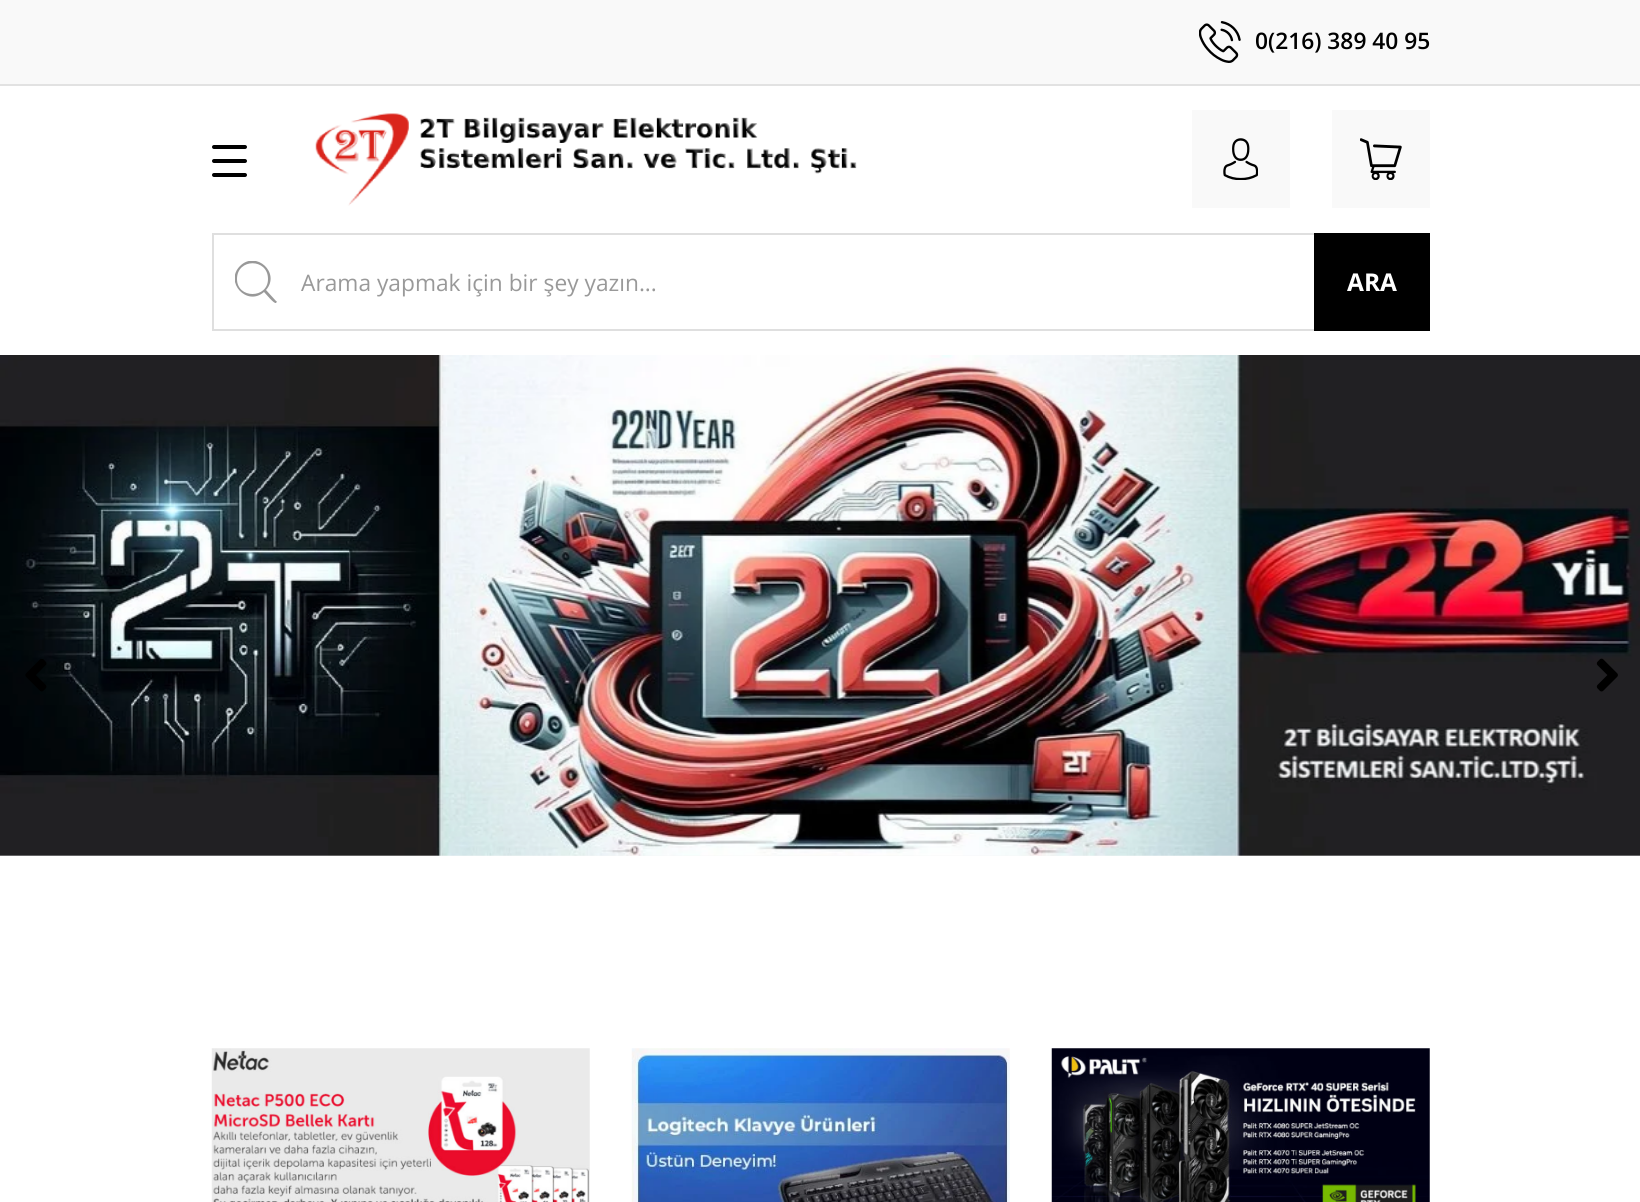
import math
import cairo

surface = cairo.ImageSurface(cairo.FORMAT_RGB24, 1640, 1202)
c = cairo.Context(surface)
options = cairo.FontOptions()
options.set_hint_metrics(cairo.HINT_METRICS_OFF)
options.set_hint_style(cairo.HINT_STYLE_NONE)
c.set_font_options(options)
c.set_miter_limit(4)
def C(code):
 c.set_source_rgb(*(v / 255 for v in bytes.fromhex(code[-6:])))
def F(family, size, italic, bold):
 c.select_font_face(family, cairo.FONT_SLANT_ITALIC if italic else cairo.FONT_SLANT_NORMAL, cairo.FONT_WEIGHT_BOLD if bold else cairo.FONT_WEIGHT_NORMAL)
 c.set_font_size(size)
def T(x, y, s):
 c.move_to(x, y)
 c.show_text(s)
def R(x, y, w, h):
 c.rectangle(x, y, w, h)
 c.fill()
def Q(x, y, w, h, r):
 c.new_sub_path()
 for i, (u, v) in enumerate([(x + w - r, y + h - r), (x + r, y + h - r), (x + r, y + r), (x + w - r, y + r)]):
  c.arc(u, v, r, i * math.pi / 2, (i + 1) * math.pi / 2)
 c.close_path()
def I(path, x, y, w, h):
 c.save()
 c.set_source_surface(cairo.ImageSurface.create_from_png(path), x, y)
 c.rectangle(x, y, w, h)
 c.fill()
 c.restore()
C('ffffff')
c.paint()
C('f9f9f9')
R(0,0,1640,84)
C('e2e2e2')
R(0,84,1640,2)
I('1.png',1199,21,42,42)
F('Open Sans SemiBold',22.75,0,0)
C('000000')
T(1255,49,'0(216) 389 40 95')
Q(212,145,35,4,2)
c.fill()
Q(212,159,35,4,2)
c.fill()
Q(212,173,35,4,2)
c.fill()
I('2.png',315,113,542,93)
C('f9f9f9')
R(1192,110,98,98)
I('3.png',1223,138,35,42)
R(1332,110,98,98)
I('4.png',1360,138,42,42)
c.rectangle(213,234,1216,96)
C('dfdfdf')
c.stroke()
c.save()
c.rectangle(235,261,42,42)
c.clip()
C('999999')
c.new_path()
c.move_to(276,301)
c.line_to(266,290)
c.curve_to(281,273,256,250,240,266)
c.curve_to(224,282,247,307,264,292)
c.curve_to(266,294,274,304,276,303)
c.curve_to(277,302,277,301,276,301)
c.close_path()
c.move_to(237,279)
c.curve_to(237,258,268,258,268,279)
c.curve_to(268,299,237,299,237,279)
c.close_path()
c.fill()
c.restore()
F('Open Sans',22.75,0,0)
C('999999')
T(301,291,'Arama yapmak için bir şey yazın...')
C('000000')
R(1314,233,116,98)
F('Open Sans',24.5,0,1)
C('ffffff')
T(1347,291,'ARA')
C('f5f5f5')
R(0,855,1640,1)
I('5.png',0,355,1640,501)
I('6.png',25,659,22,33)
I('7.png',1596,658,22,34)
I('8.png',211,1048,379,154)
I('9.png',631,1048,379,154)
I('10.png',1051,1048,379,154)
surface.write_to_png('o.png')
